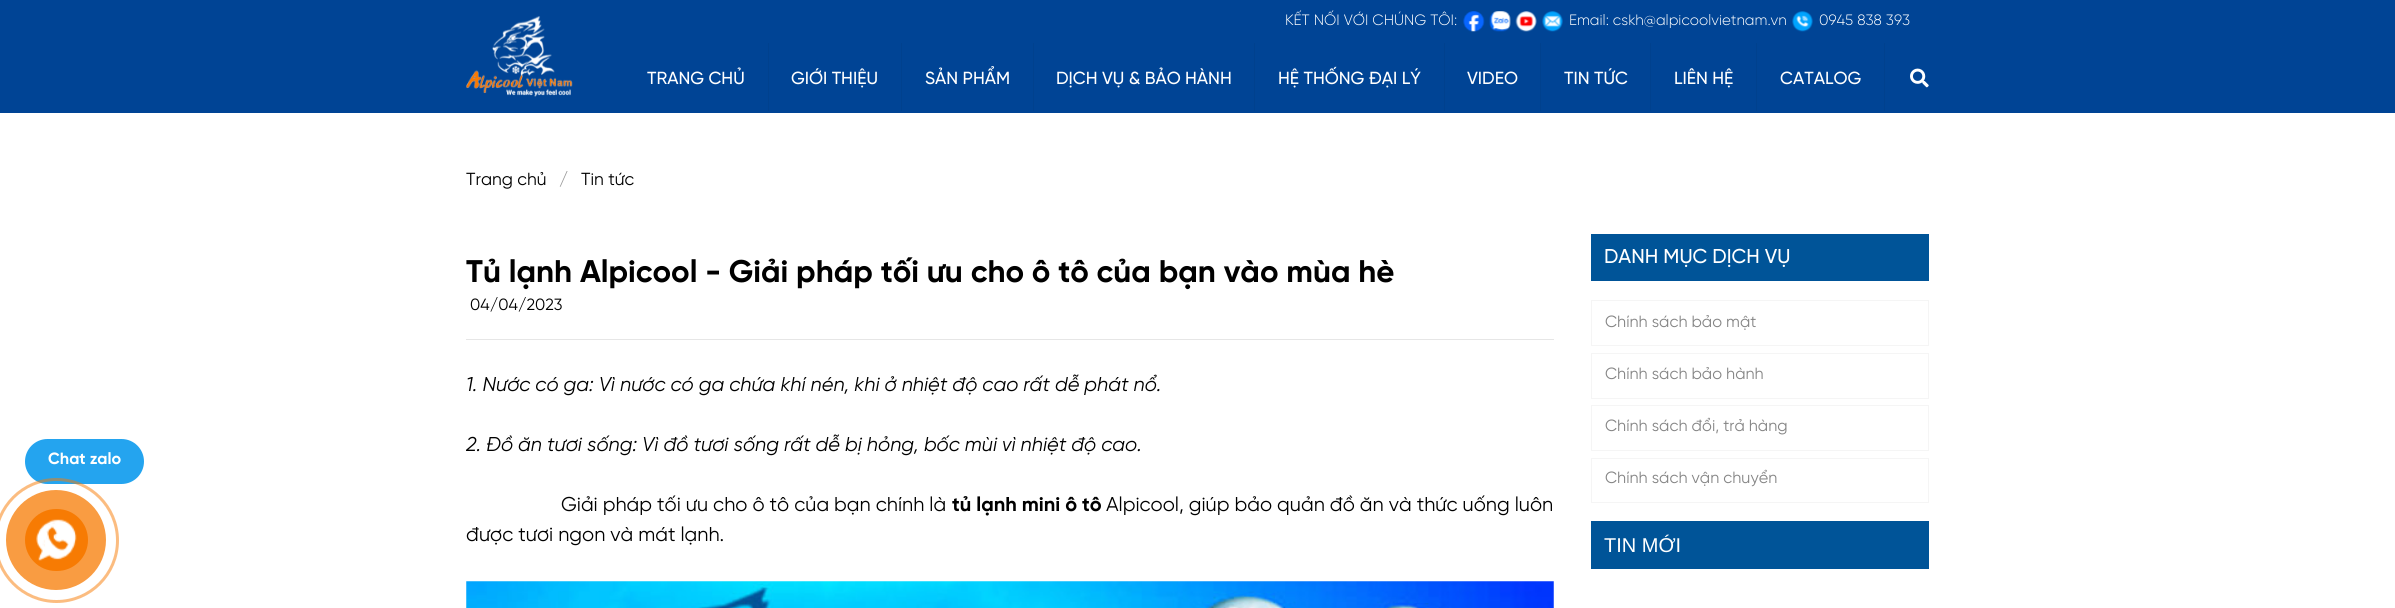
import math
import cairo

surface = cairo.ImageSurface(cairo.FORMAT_RGB24, 2395, 608)
c = cairo.Context(surface)
options = cairo.FontOptions()
options.set_hint_metrics(cairo.HINT_METRICS_OFF)
options.set_hint_style(cairo.HINT_STYLE_NONE)
c.set_font_options(options)
c.set_miter_limit(4)
def C(code):
 c.set_source_rgb(*(v / 255 for v in bytes.fromhex(code[-6:])))
def F(family, size, italic, bold):
 c.select_font_face(family, cairo.FONT_SLANT_ITALIC if italic else cairo.FONT_SLANT_NORMAL, cairo.FONT_WEIGHT_BOLD if bold else cairo.FONT_WEIGHT_NORMAL)
 c.set_font_size(size)
def T(x, y, s):
 c.move_to(x, y)
 c.show_text(s)
def R(x, y, w, h):
 c.rectangle(x, y, w, h)
 c.fill()
def Q(x, y, w, h, r):
 c.new_sub_path()
 for i, (u, v) in enumerate([(x + w - r, y + h - r), (x + r, y + h - r), (x + r, y + r), (x + w - r, y + r)]):
  c.arc(u, v, r, i * math.pi / 2, (i + 1) * math.pi / 2)
 c.close_path()
def I(path, x, y, w, h):
 c.save()
 c.set_source_surface(cairo.ImageSurface.create_from_png(path), x, y)
 c.rectangle(x, y, w, h)
 c.fill()
 c.restore()
C('ffffff')
c.paint()
C('004495')
R(0,0,2395,113)
I('1.png',466,16,107,81)
F('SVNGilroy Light',15,0,0)
C('ffffff')
T(1285,25,'KẾT NỐI VỚI CHÚNG TÔI:')
I('2.png',1463,11,22,21)
I('3.png',1489,11,22,21)
I('4.png',1515,11,22,21)
I('5.png',1542,11,21,21)
T(1569,25,'Email: cskh@alpicoolvietnam.vn')
I('6.png',1792,11,21,21)
T(1819,25,'0945 838 393')
C('00418e')
R(768,43,1,68)
F('SVNGilroy Medium',17.5,0,0)
C('ffffff')
T(647,84,'TRANG CHỦ')
C('00418e')
R(901,43,1,68)
C('ffffff')
T(791,84,'GIỚI THIỆU')
C('00418e')
R(1033,43,1,68)
C('ffffff')
T(925,84,'SẢN PHẨM')
C('00418e')
R(1254,43,1,68)
C('ffffff')
T(1056,84,'DỊCH VỤ & BẢO HÀNH')
C('00418e')
R(1444,43,1,68)
C('ffffff')
T(1278,84,'HỆ THỐNG ĐẠI LÝ')
C('00418e')
R(1540,43,1,68)
C('ffffff')
T(1467,84,'VIDEO')
C('00418e')
R(1650,43,1,68)
C('ffffff')
T(1564,84,'TIN TỨC')
C('00418e')
R(1756,43,1,68)
C('ffffff')
T(1674,84,'LIÊN HỆ')
C('00418e')
R(1884,43,1,68)
C('ffffff')
T(1780,84,'CATALOG')
I('7.png',1910,68,19,20)
C('24a4ef')
Q(25,439,119,45,22.5)
c.fill()
F('SVNGilroy',16.25,0,1)
C('ffffff')
T(48,464,'Chat zalo')
F('SVNGilroy',17.5,0,0)
C('000000')
T(466,185,'Trang chủ')
C('999999')
T(559,185,'/')
C('000000')
T(581,185,'Tin tức')
C('e6e6e6')
R(466,339,1088,1)
F('SVNGilroy',31.25,0,1)
C('000000')
T(466,282,'Tủ lạnh Alpicool - Giải pháp tối ưu cho ô tô của bạn vào mùa hè')
F('SVNGilroy',16.25,0,0)
T(470,310,'04/04/2023')
F('SVNGilroy',20,1,0)
T(466,391,'1. Nước có ga: Vì nước có ga chứa khí nén, khi ở nhiệt độ cao rất dễ phát nổ.')
T(466,451,'2. Đồ ăn tươi sống: Vì đồ tươi sống rất dễ bị hỏng, bốc mùi vì nhiệt độ cao.')
F('SVNGilroy',20,0,0)
T(561,511,'Giải pháp tối ưu cho ô tô của bạn chính là')
F('SVNGilroy',20,0,1)
T(952,511,'tủ lạnh mini ô tô')
F('SVNGilroy',20,0,0)
T(1106,511,'Alpicool, giúp bảo quản đồ ăn và thức uống luôn')
T(466,541,'được tươi ngon và mát lạnh.')
I('8.png',466,581,1088,27)
C('005498')
R(1591,234,338,47)
F('SVNGilroy Medium',20,0,0)
C('ffffff')
T(1604,263,'DANH MỤC DỊCH VỤ')
c.rectangle(1591.5,300.5,337,45)
C('f5f5f5')
c.set_line_width(1)
c.stroke()
F('SVNGilroy',16.25,0,0)
C('858585')
T(1605,327,'Chính sách bảo mật')
c.rectangle(1591.5,353.5,337,45)
C('f5f5f5')
c.stroke()
C('858585')
T(1605,379,'Chính sách bảo hành')
c.rectangle(1591.5,405.5,337,45)
C('f5f5f5')
c.stroke()
C('858585')
T(1605,431,'Chính sách đổi, trả hàng')
c.rectangle(1591.5,458.5,337,44)
C('f5f5f5')
c.stroke()
C('858585')
T(1605,483,'Chính sách vận chuyển')
C('005498')
R(1591,521,338,48)
F('Liberation Sans',20,0,0)
C('ffffff')
T(1604,552,'TIN MỚI')
c.new_path()
c.arc(56.5,540.5,61,0,2 * math.pi)
c.set_source_rgba(0.969,0.482,0.012,0.5)
c.set_line_width(3)
c.stroke()
C('f99c42')
c.arc(56,540,50,0,2 * math.pi)
c.fill()
C('f77b03')
Q(25,509,63,62,31)
c.fill()
I('9.png',36,519,41,42)
surface.write_to_png('o.png')
